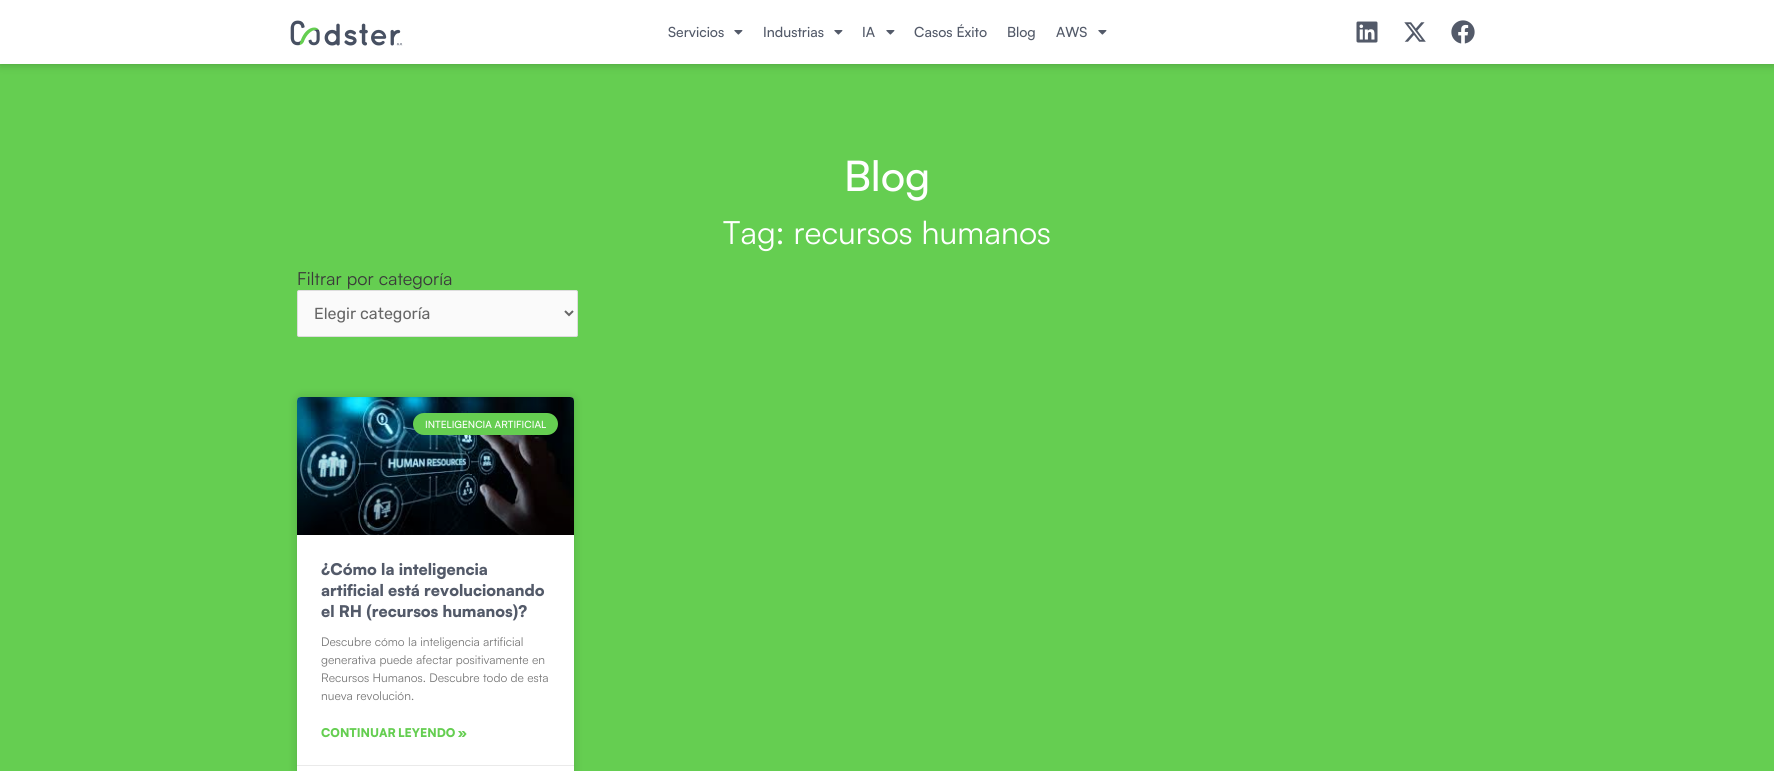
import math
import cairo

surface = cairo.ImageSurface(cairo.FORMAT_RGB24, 1774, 771)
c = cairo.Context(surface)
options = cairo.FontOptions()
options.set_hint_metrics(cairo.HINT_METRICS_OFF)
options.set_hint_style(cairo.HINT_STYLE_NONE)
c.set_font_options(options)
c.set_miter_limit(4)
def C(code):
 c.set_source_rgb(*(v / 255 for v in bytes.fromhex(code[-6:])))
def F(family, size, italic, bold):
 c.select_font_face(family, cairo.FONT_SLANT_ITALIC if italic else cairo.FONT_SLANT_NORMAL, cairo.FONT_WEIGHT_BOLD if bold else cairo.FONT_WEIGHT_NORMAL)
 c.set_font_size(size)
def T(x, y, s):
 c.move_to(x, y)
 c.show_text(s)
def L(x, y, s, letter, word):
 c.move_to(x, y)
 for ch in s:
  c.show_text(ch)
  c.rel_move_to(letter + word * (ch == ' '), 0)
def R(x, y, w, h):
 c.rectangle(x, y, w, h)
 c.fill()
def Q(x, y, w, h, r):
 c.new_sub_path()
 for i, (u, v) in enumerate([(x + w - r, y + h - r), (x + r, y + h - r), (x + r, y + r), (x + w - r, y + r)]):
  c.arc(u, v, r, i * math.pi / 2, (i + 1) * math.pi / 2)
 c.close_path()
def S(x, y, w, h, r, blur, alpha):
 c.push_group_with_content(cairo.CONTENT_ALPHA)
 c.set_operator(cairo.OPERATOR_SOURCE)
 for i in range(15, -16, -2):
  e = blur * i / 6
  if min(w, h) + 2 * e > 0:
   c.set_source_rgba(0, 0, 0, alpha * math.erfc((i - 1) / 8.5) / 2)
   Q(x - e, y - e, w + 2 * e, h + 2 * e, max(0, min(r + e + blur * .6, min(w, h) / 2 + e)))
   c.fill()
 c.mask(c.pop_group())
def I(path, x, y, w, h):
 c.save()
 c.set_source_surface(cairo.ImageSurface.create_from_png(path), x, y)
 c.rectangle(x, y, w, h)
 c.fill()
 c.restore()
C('65ce51')
c.paint()
C('000000')
S(0,0,1774,64,0,5,.25)
C('ffffff')
R(0,0,1774,64)
I('1.png',290,20,113,26)
F('Satoshi Medium',14,0,0)
C('535a69')
T(668,37,'Servicios')
I('2.png',734,30,9,5)
T(763,37,'Industrias')
I('2.png',834,30,9,5)
T(862,37,'IA')
I('2.png',886,30,9,5)
T(914,37,'Casos Éxito')
T(1007,37,'Blog')
T(1056,37,'AWS')
I('2.png',1098,30,9,5)
I('3.png',1356,21,22,22)
I('4.png',1404,22,22,20)
I('5.png',1451,20,24,24)
F('Satoshi Medium',42,0,0)
C('ffffff')
T(844,191,'Blog')
F('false',32,0,0)
T(723,244,'Tag: recursos humanos')
F('false',18,0,0)
C('3a3a3a')
T(297,285,'Filtrar por categoría')
C('fafafa')
Q(297.5,290.5,280,46,1.5)
c.fill_preserve()
C('dddddd')
c.set_line_width(1)
c.stroke()
c.new_path()
c.move_to(565,311)
c.line_to(569,315)
c.line_to(573,311)
C('666666')
c.set_line_width(2)
c.stroke()
F('Rubik',16,0,0)
T(314,319,'Elegir categoría')
C('000000')
S(297,397,277,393,4,5,.15)
C('ffffff')
Q(297,397,277,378,4)
c.fill()
I('6.png',297,397,277,138)
gradient = cairo.LinearGradient(436,535,436,397)
gradient.add_color_stop_rgba(0,0,0,0,.35)
gradient.add_color_stop_rgba(.75,0,0,0,0)
c.set_source(gradient)
R(297,438,277,97)
C('65ce51')
Q(413,413,145,22,11)
c.fill()
F('Satoshi Medium',10,0,0)
C('ffffff')
T(425,428,'INTELIGENCIA ARTIFICIAL')
F('Satoshi Black',16,0,0)
C('535a69')
T(321,575,'¿Cómo la inteligencia')
T(321,596,'artificial está revolucionando')
T(321,617,'el RH (recursos humanos)?')
F('false',12,0,0)
C('777777')
T(321,646,'Descubre cómo la inteligencia artificial')
T(321,664,'generativa puede afectar positivamente en')
T(321,682,'Recursos Humanos. Descubre todo de esta')
T(321,700,'nueva revolución.')
F('Satoshi Black',12,0,0)
C('65ce51')
L(321,737,'CONTINUAR LEYENDO »',0,-1)
C('eaeaea')
R(297,765,277,1)
surface.write_to_png('o.png')
